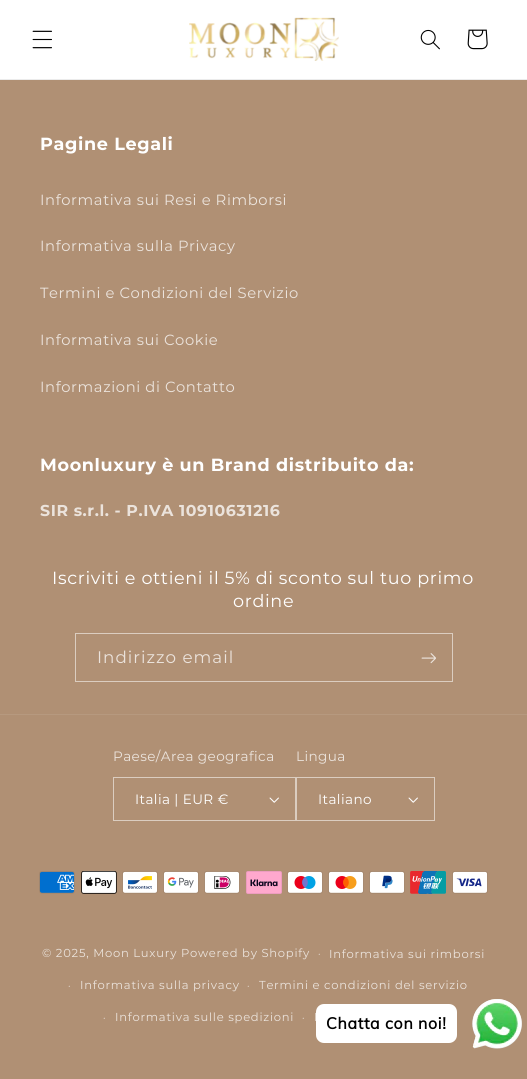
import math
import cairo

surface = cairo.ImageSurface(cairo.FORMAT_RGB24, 527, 1079)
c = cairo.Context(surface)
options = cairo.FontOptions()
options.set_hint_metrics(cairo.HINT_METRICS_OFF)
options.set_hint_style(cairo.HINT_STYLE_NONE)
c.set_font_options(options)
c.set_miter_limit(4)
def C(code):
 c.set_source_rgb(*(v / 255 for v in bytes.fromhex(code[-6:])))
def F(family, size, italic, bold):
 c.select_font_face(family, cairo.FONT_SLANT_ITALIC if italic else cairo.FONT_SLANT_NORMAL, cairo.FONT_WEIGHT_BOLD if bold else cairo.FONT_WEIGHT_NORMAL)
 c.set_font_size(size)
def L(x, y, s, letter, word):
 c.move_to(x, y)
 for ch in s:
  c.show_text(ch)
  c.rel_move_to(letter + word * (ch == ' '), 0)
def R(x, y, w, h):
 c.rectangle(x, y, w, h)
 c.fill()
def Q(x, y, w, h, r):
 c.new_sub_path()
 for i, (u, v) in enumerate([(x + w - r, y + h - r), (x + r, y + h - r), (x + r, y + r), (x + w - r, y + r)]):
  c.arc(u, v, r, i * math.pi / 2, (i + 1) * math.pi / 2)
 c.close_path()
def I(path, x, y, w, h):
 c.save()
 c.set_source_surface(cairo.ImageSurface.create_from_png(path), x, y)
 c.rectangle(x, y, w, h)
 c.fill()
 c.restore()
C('b09074')
c.paint()
C('ffffff')
R(0,0,527,79)
C('ebebeb')
R(0,79,527,1)
I('1.png',32,30,20,19)
I('2.png',189,17,150,44)
I('3.png',420,29,20,21)
I('4.png',467,29,21,21)
F('Montserrat',17.6,0,1)
C('ffffff')
L(40,150,'Pagine Legali',.65,0)
F('Montserrat',14.75,0,0)
C('ebe3dc')
L(40,205,'Informativa sui Resi e Rimborsi',.6,0)
L(40,251,'Informativa sulla Privacy',.6,0)
L(40,298,'Termini e Condizioni del Servizio',.6,0)
L(40,345,'Informativa sui Cookie',.6,0)
L(40,392,'Informazioni di Contatto',.6,0)
F('Montserrat',17.6,0,1)
C('ffffff')
L(40,471,'Moonluxury è un Brand distribuito da:',.65,0)
F('Montserrat',15.75,0,1)
C('ebe3dc')
L(40,516,'SIR s.r.l. - P.IVA 10910631216',.6,0)
F('Montserrat',17.6,0,0)
C('ffffff')
L(52,584,'Iscriviti e ottieni il 5% di sconto sul tuo primo',.65,0)
L(233,607,'ordine',.65,0)
c.rectangle(75.5,633.5,377,48)
C('dbcdc0')
c.set_line_width(1)
c.stroke()
F('Montserrat',16.75,0,0)
C('ebe3dc')
L(97,663,'Indirizzo email',1,0)
I('5.png',421,653,15,11)
C('b6997f')
R(0,714,527,1)
F('Montserrat',13.6,0,0)
C('ebe3dc')
L(113,761,'Paese/Area geografica',.4,0)
I('6.png',269,797,10,6)
c.rectangle(113.5,777.5,182,43)
C('dbcdc0')
c.stroke()
C('ffffff')
L(135,804,'Italia | EUR €',.4,0)
C('ebe3dc')
L(296,761,'Lingua',.4,0)
I('6.png',408,797,10,6)
c.rectangle(296.5,777.5,138,43)
C('dbcdc0')
c.stroke()
C('ffffff')
L(318,804,'Italiano',.4,0)
I('7.png',39,871,36,23)
I('8.png',81,871,36,23)
I('9.png',122,871,36,23)
I('10.png',163,871,36,23)
I('11.png',204,871,36,23)
I('12.png',246,871,36,23)
I('13.png',287,871,36,23)
I('14.png',328,871,36,23)
I('15.png',369,871,36,23)
I('16.png',410,871,36,23)
I('17.png',452,871,36,23)
F('Montserrat',11.55,0,0)
C('ebe3dc')
L(42,957,'© 2025, Moon Luxury Powered by Shopify',.75,0)
F('Montserrat',10,0,0)
L(318,957,'·',.75,0)
F('Montserrat',11.55,0,0)
L(329,958,'Informativa sui rimborsi',.75,0)
F('Montserrat',10,0,0)
L(68,989,'·',.75,0)
F('Montserrat',11.55,0,0)
L(80,989,'Informativa sulla privacy',.75,0)
F('Montserrat',10,0,0)
L(247,989,'·',.75,0)
F('Montserrat',11.55,0,0)
L(259,989,'Termini e condizioni del servizio',.75,0)
F('Montserrat',10,0,0)
L(103,1021,'·',.75,0)
F('Montserrat',11.55,0,0)
L(115,1021,'Informativa sulle spedizioni',.75,0)
F('Montserrat',10,0,0)
L(302,1021,'·',.75,0)
F('Montserrat',11.55,0,0)
L(314,1021,'I',.75,0)
I('18.png',472,999,50,50)
C('ffffff')
Q(316,1004,141,39,8)
c.fill()
F('Muli',16,0,1)
C('000000')
L(326,1029,'Chatta con noi!',.6,0)
surface.write_to_png('o.png')
